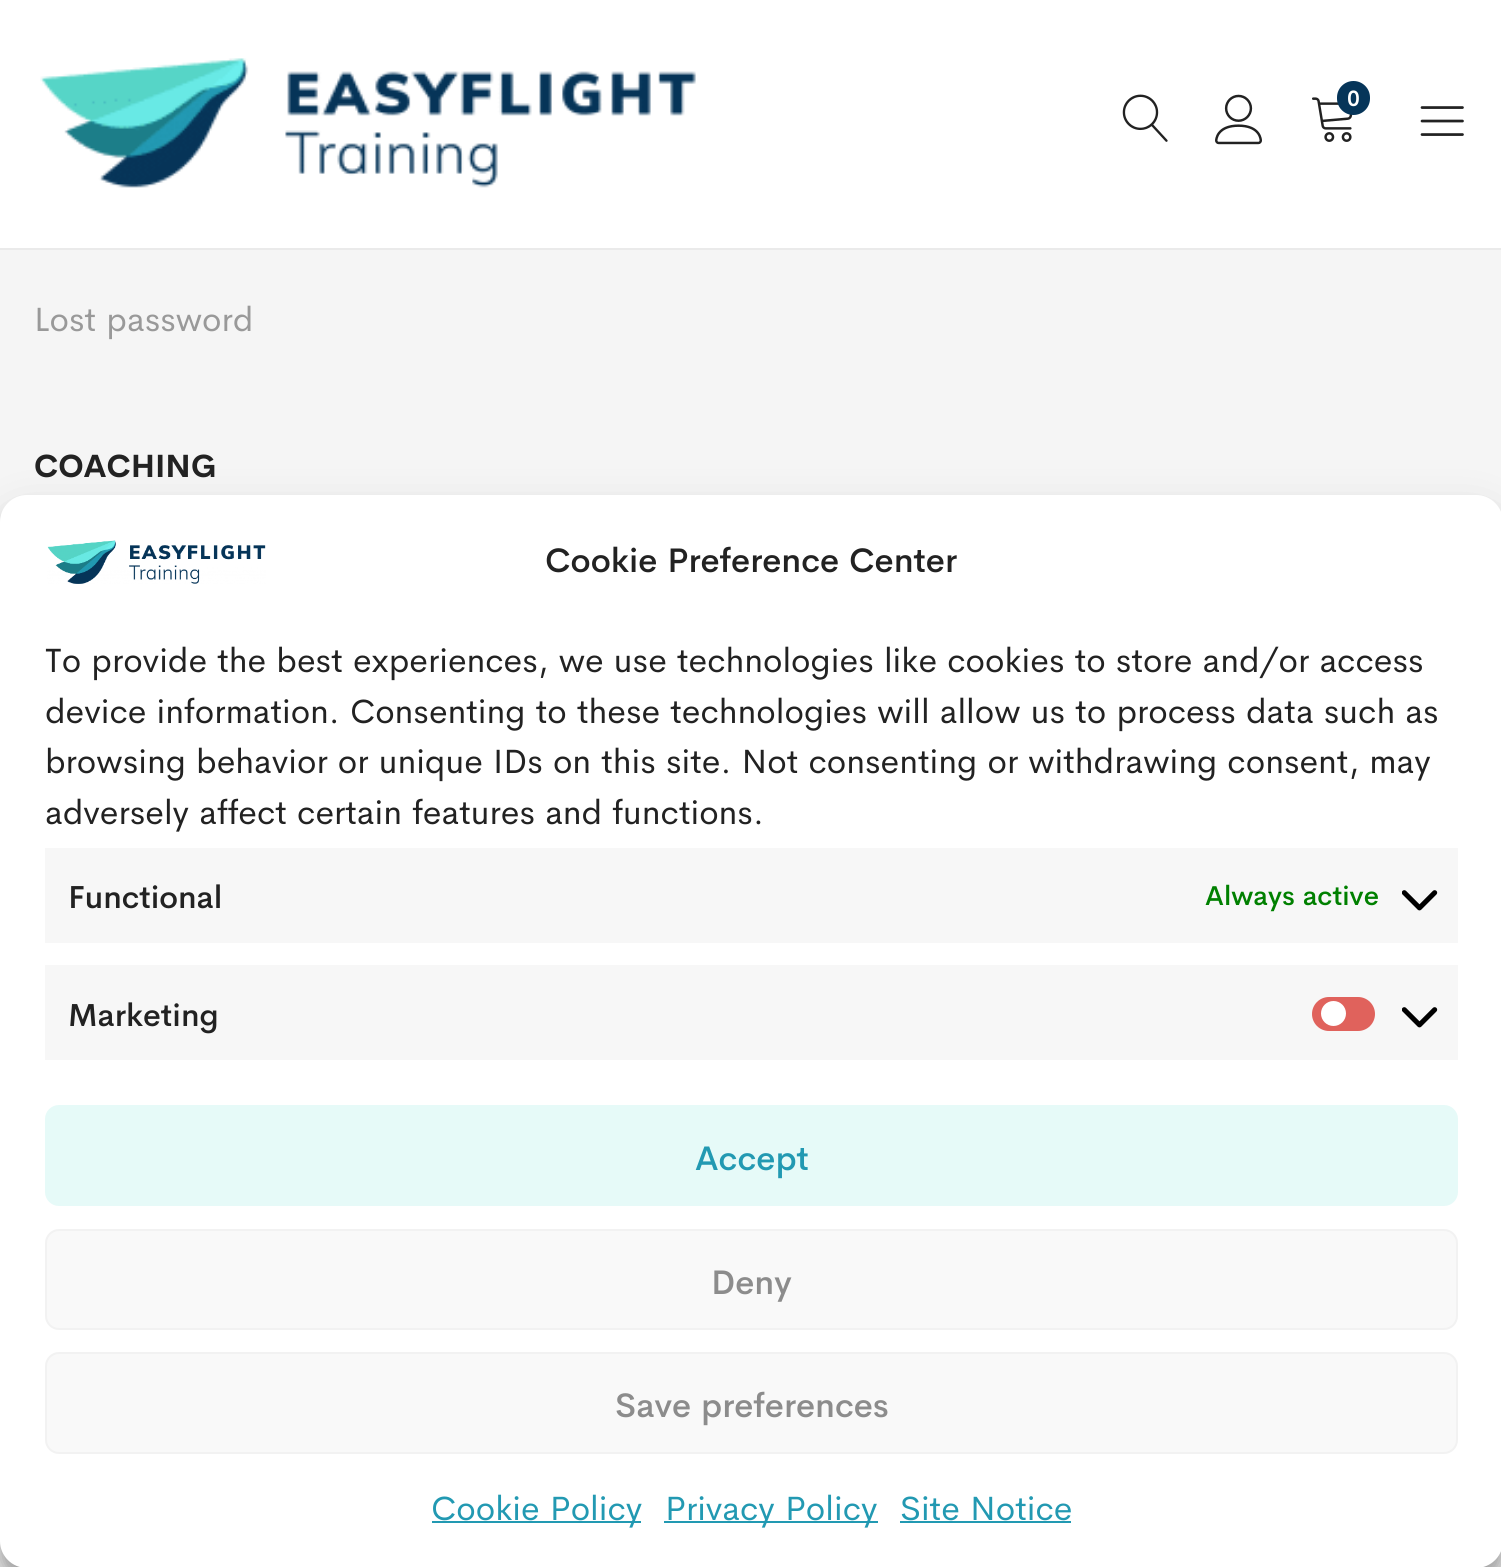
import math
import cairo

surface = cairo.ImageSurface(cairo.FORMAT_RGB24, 1501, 1567)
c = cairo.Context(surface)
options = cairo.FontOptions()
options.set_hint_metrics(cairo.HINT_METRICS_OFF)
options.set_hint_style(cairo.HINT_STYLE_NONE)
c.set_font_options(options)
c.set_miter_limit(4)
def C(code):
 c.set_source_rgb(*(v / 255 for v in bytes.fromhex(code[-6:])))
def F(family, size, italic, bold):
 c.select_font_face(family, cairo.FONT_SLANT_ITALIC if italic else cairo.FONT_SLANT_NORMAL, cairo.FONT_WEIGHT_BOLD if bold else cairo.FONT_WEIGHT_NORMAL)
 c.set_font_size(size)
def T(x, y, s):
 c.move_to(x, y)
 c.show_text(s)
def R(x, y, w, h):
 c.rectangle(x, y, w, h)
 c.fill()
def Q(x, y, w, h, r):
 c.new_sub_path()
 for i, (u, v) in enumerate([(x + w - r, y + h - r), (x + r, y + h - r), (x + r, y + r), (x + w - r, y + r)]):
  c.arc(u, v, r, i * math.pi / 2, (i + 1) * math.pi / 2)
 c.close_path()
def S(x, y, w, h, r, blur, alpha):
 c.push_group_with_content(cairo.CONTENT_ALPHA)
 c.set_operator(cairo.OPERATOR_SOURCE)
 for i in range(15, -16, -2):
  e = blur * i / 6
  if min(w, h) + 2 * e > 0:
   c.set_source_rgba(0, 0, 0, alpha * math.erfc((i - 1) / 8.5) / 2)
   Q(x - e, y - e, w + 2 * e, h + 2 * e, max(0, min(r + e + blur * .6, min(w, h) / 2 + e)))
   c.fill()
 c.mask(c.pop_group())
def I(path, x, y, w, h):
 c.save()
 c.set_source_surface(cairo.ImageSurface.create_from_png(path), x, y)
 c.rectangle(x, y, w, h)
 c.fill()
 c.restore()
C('f5f5f5')
c.paint()
C('ffffff')
R(0,0,1501,248)
C('eaeaea')
R(0,248,1501,2)
I('1.png',40,58,656,130)
I('2.png',1122,94,46,48)
I('3.png',1215,94,47,51)
I('4.png',1312,97,41,45)
C('063559')
Q(1337,81,33,34,16.5)
c.fill()
F('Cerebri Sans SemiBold',22,0,0)
C('ffffff')
T(1347,106,'0')
I('5.png',1420,106,44,30)
F('Cerebri Sans',33.75,0,0)
C('999999')
T(34,331,'Lost password')
F('Cerebri Sans',31.5,0,1)
C('222222')
T(34,477,'COACHING')
C('000000')
S(0,509,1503,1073,27,7,.23)
S(0,518,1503,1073,27,22.5,.19)
C('ffffff')
Q(0,495,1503,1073,27)
c.fill()
I('6.png',47,540,219,44)
F('Cerebri Sans Medium',33.75,0,0)
C('222222')
T(545,572,'Cookie Preference Center')
F('Cerebri Sans',33.75,0,0)
T(45,672,'To provide the best experiences, we use technologies like cookies to store and/or access')
T(45,723,'device information. Consenting to these technologies will allow us to process data such as')
T(45,773,'browsing behavior or unique IDs on this site. Not consenting or withdrawing consent, may')
T(45,824,'adversely affect certain features and functions.')
C('f7f7f7')
R(45,848,1413,95)
F('Cerebri Sans Medium',31.5,0,0)
C('222222')
T(68,908,'Functional')
F('Cerebri Sans Medium',27,0,0)
C('008000')
T(1205,905,'Always active')
I('7.png',1402,890,36,21)
C('f7f7f7')
R(45,965,1413,95)
F('Cerebri Sans Medium',31.5,0,0)
C('222222')
T(68,1026,'Marketing')
C('e0625c')
Q(1312,997,63,34,17)
c.fill()
C('ffffff')
c.arc(1333.5,1013.5,12.5,0,2 * math.pi)
c.fill()
I('7.png',1402,1007,36,21)
C('e6faf8')
Q(46,1106,1411,99,13)
c.fill_preserve()
c.stroke()
F('Cerebri Sans Medium',33.75,0,0)
C('2299b2')
T(695,1170,'Accept')
C('f9f9f9')
Q(46,1230,1411,99,13)
c.fill_preserve()
C('f2f2f2')
c.stroke()
C('8c8c8c')
T(711,1294,'Deny')
C('f9f9f9')
Q(46,1353,1411,100,13)
c.fill_preserve()
C('f2f2f2')
c.stroke()
C('8c8c8c')
T(615,1417,'Save preferences')
C('2299b2')
R(432,1521,209,2)
F('Cerebri Sans',33.75,0,0)
T(431,1520,'Cookie Policy')
R(664,1521,214,2)
T(665,1520,'Privacy Policy')
T(900,1520,'Site Notice')
R(900,1521,171,2)
surface.write_to_png('o.png')
